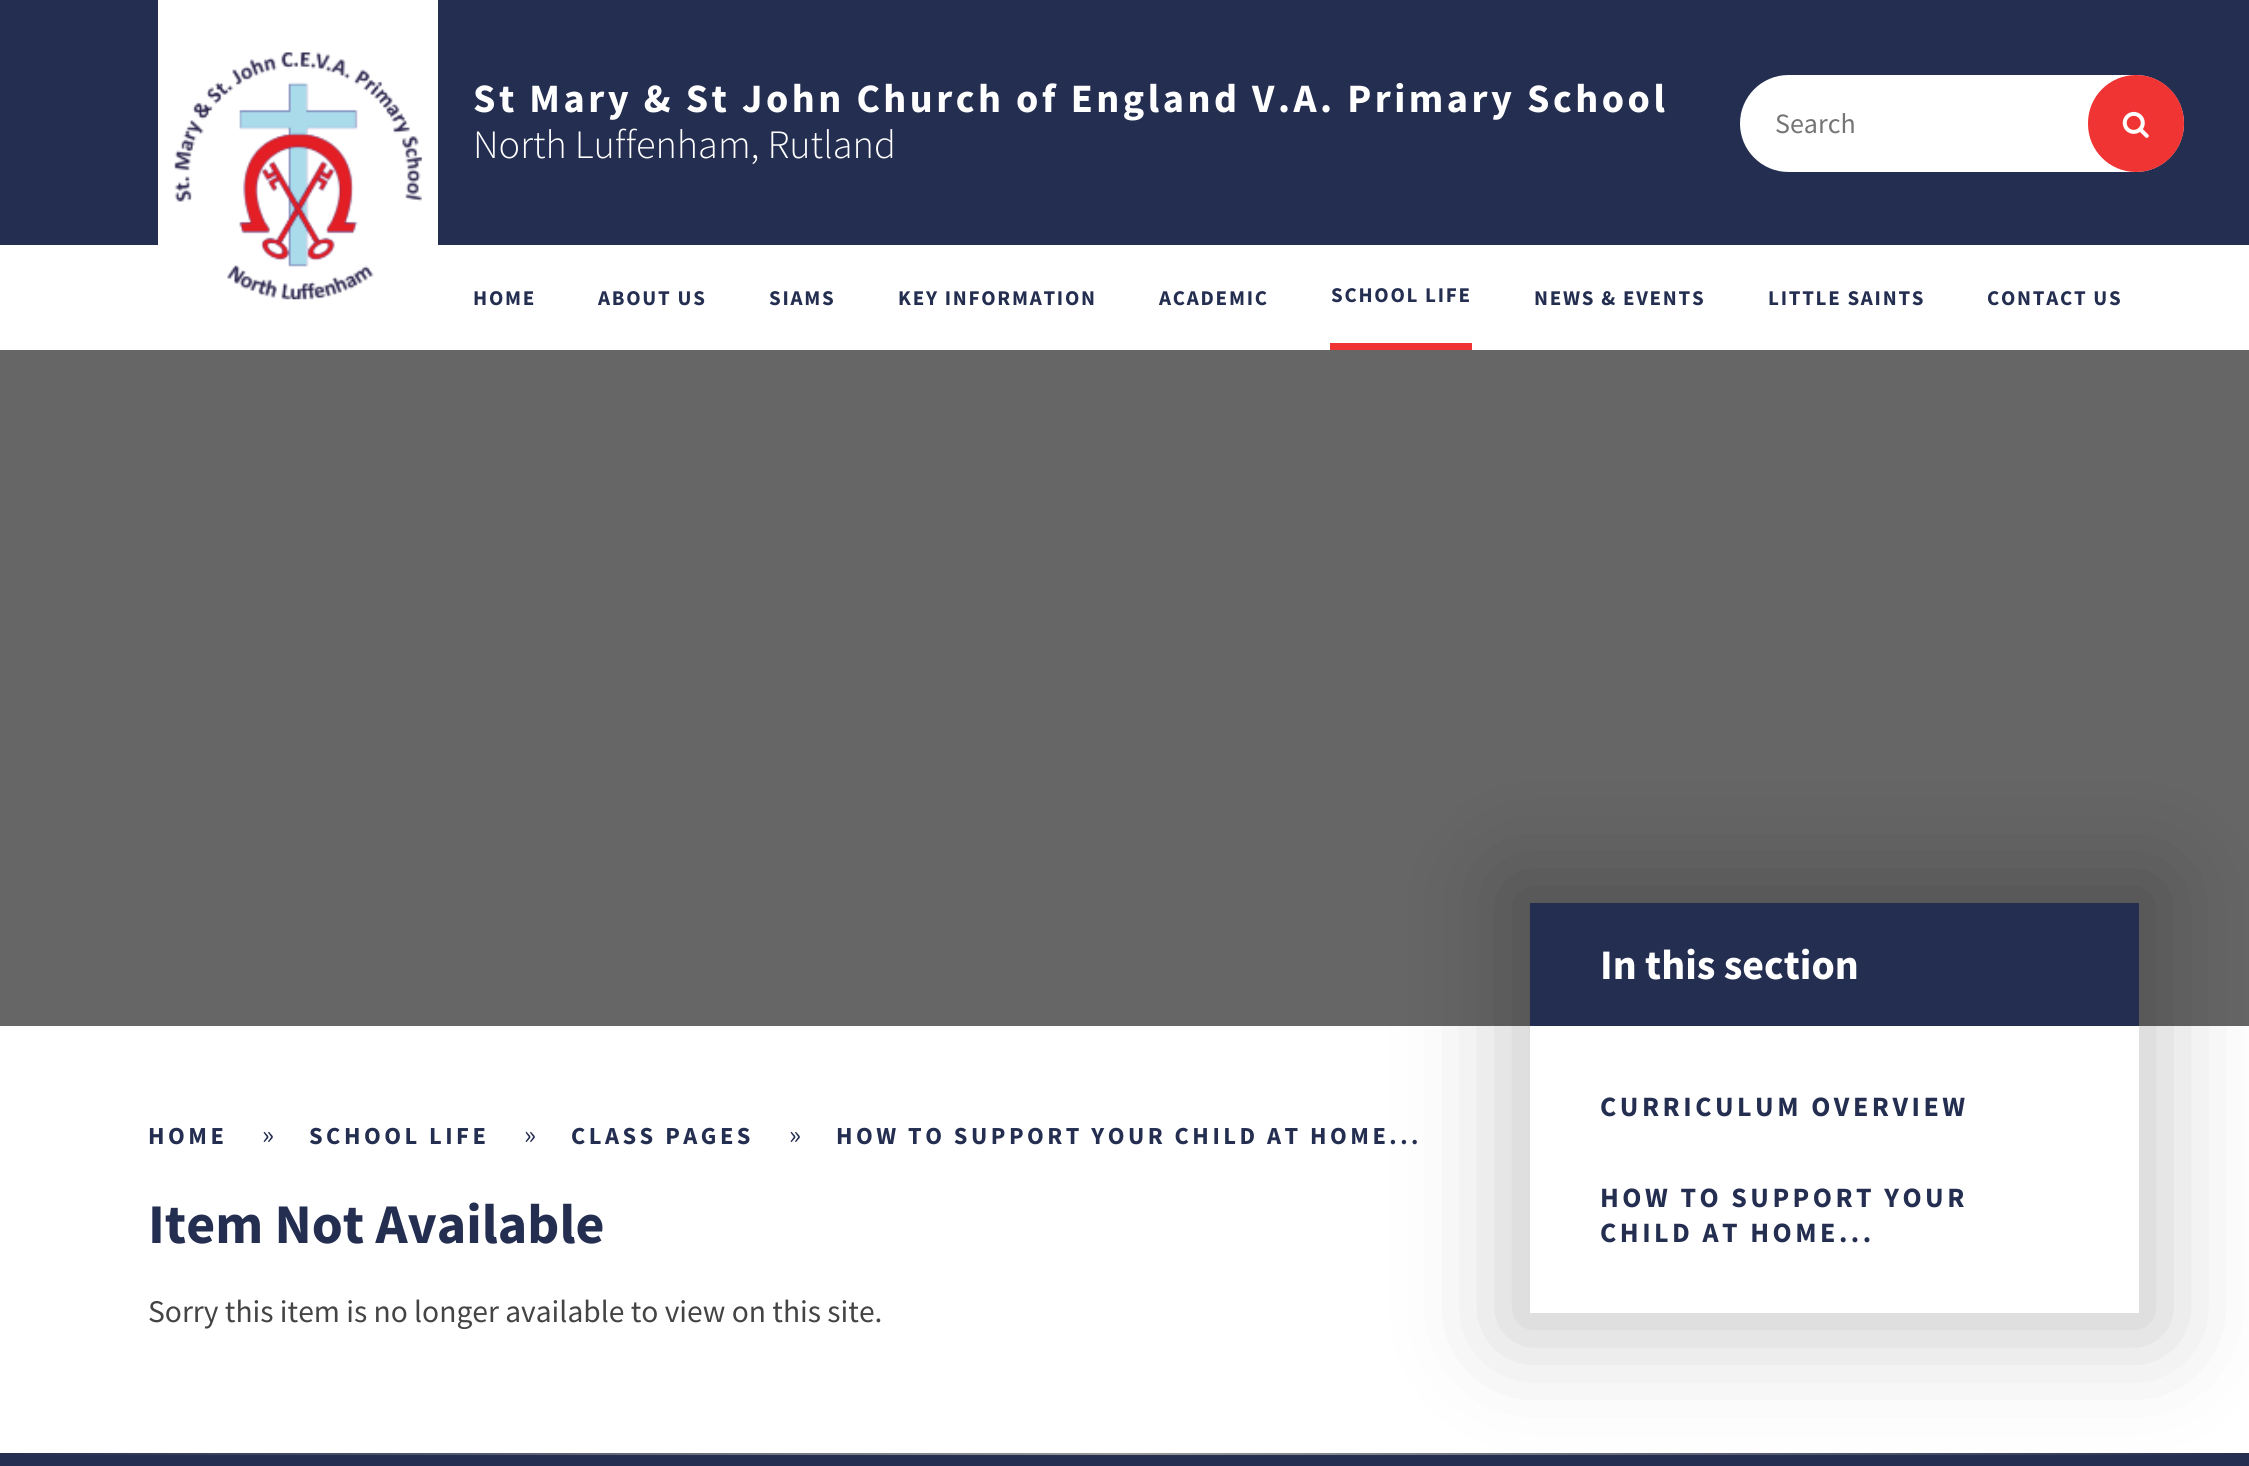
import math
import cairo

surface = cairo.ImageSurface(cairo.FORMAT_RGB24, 2249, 1466)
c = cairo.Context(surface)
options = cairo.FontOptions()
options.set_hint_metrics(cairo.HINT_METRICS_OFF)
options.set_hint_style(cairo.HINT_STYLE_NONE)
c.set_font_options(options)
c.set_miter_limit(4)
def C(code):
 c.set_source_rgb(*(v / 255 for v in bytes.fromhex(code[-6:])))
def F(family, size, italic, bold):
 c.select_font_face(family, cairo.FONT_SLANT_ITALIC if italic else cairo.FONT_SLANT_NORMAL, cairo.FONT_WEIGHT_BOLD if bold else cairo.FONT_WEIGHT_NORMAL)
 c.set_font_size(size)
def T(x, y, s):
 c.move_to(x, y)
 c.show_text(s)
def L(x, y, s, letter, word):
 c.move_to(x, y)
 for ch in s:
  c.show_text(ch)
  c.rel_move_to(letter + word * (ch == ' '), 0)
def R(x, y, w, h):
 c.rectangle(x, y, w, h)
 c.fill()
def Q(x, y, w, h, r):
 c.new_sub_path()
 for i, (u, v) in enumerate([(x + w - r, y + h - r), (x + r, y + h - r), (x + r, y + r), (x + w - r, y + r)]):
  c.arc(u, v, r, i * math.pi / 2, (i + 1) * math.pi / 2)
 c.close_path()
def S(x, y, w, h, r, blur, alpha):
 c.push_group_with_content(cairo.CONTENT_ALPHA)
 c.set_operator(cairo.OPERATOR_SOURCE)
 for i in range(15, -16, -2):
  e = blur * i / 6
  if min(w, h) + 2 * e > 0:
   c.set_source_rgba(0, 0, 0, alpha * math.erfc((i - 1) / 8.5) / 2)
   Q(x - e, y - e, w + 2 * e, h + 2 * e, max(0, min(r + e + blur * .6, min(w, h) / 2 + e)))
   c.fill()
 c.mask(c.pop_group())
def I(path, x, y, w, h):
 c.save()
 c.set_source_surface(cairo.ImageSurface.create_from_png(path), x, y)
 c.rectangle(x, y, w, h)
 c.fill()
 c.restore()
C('ffffff')
c.paint()
C('242e50')
R(0,0,2249,245)
C('ffffff')
R(158,0,280,245)
I('1.png',174,52,248,248)
F('Source Sans Pro',40.25,0,1)
L(473,112,'St Mary & St John Church of England V.A. Primary School',3.5,0)
Q(1740,75,444,97,48.5)
c.fill()
F('Source Sans Pro',28,0,0)
C('757575')
T(1775,133,'Search')
C('f03434')
Q(2088,75,96,97,48)
c.fill()
I('2.png',2122,111,27,27)
F('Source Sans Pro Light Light',40.25,0,0)
C('ffffff')
T(473,158,'North Luffenham, Rutland')
F('Source Sans Pro',21,0,1)
C('242e50')
L(473,305,'HOME',1.75,0)
L(598,305,'ABOUT US',1.75,0)
L(769,305,'SIAMS',1.75,0)
L(898,305,'KEY INFORMATION',1.75,0)
L(1159,305,'ACADEMIC',1.75,0)
C('f03434')
R(1330,343,142,7)
C('242e50')
L(1331,302,'SCHOOL LIFE',1.75,0)
L(1534,305,'NEWS & EVENTS',1.75,0)
L(1768,305,'LITTLE SAINTS',1.75,0)
L(1987,305,'CONTACT US',1.75,0)
C('666666')
R(0,350,2249,676)
F('Source Sans Pro',24.5,0,1)
C('242e50')
L(148,1144,'HOME',3.5,0)
F('Source Sans Pro',28,0,0)
T(262,1144,'»')
F('Source Sans Pro',24.5,0,1)
L(309,1144,'SCHOOL LIFE',3.5,0)
F('Source Sans Pro',28,0,0)
T(524,1144,'»')
F('Source Sans Pro',24.5,0,1)
L(571,1144,'CLASS PAGES',3.5,0)
F('Source Sans Pro',28,0,0)
T(789,1144,'»')
F('Source Sans Pro',24.5,0,1)
L(836,1144,'HOW TO SUPPORT YOUR CHILD AT HOME...',3.5,0)
F('Source Sans Pro',56,0,1)
T(148,1243,'Item Not Available')
F('Source Sans Pro',31.5,0,0)
C('444444')
T(148,1322,'Sorry this item is no longer available to view on this site.')
C('242e50')
R(0,1455,2249,11)
gradient = cairo.LinearGradient(0,1453,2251,1453)
gradient.add_color_stop_rgba(0,0.141,0.18,0.314,1)
gradient.add_color_stop_rgba(.5,0.6,0.6,0.6,1)
gradient.add_color_stop_rgba(1,0.141,0.18,0.314,1)
c.set_source(gradient)
R(0,1453,2249,2)
C('000000')
S(1503,877,662,462,0,52.5,.2)
C('ffffff')
R(1530,1026,609,287)
C('242e50')
R(1530,903,609,123)
F('Source Sans Pro',42,0,1)
C('ffffff')
T(1600,979,'In this section')
F('Source Sans Pro',28,0,1)
C('242e50')
L(1600,1116,'CURRICULUM OVERVIEW',3.5,0)
L(1600,1207,'HOW TO SUPPORT YOUR',3.5,0)
L(1600,1242,'CHILD AT HOME...',3.5,0)
surface.write_to_png('o.png')
